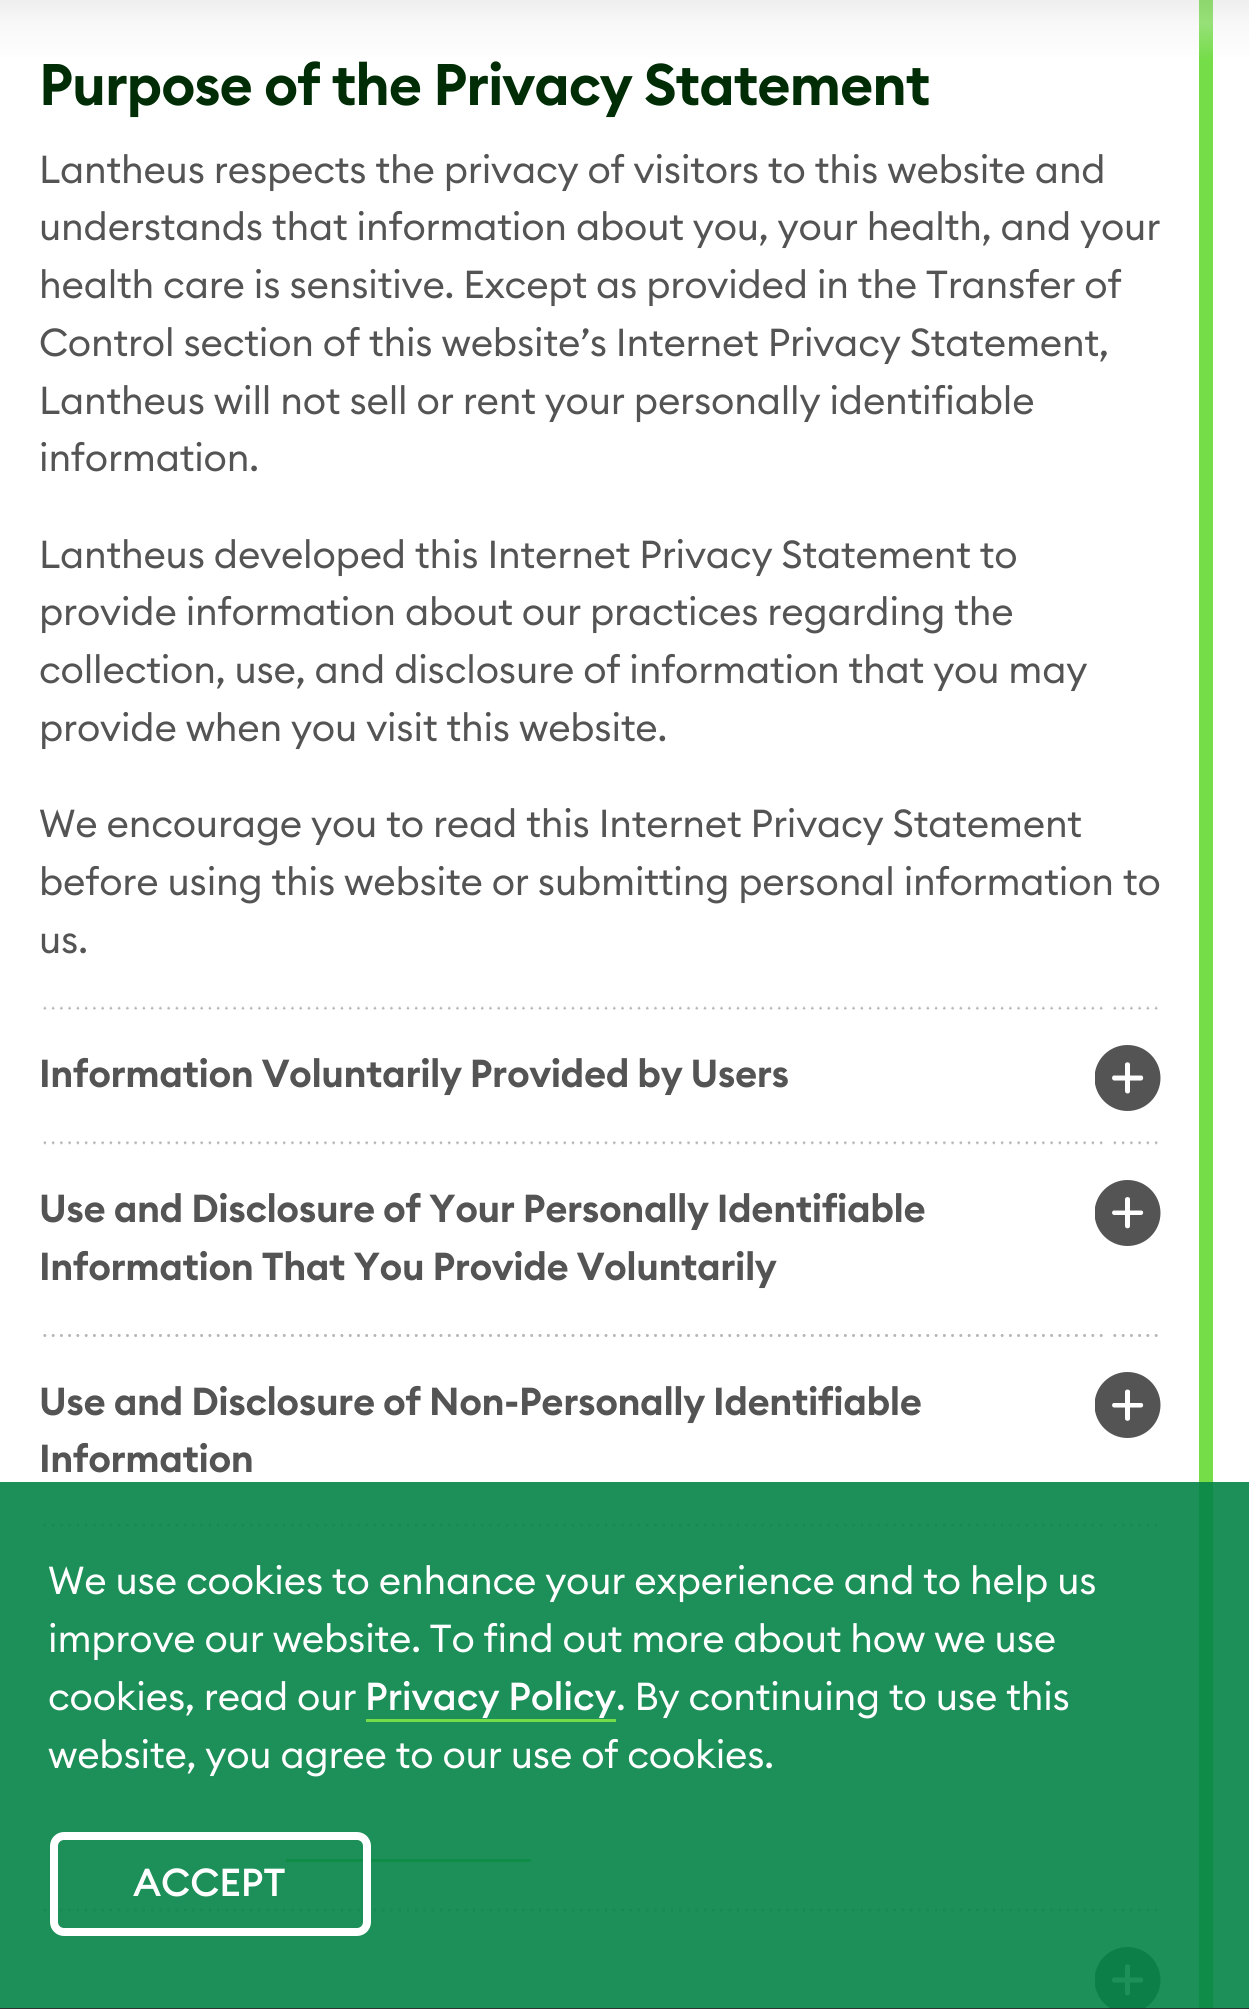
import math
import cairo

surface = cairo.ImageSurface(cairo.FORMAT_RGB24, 1249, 2009)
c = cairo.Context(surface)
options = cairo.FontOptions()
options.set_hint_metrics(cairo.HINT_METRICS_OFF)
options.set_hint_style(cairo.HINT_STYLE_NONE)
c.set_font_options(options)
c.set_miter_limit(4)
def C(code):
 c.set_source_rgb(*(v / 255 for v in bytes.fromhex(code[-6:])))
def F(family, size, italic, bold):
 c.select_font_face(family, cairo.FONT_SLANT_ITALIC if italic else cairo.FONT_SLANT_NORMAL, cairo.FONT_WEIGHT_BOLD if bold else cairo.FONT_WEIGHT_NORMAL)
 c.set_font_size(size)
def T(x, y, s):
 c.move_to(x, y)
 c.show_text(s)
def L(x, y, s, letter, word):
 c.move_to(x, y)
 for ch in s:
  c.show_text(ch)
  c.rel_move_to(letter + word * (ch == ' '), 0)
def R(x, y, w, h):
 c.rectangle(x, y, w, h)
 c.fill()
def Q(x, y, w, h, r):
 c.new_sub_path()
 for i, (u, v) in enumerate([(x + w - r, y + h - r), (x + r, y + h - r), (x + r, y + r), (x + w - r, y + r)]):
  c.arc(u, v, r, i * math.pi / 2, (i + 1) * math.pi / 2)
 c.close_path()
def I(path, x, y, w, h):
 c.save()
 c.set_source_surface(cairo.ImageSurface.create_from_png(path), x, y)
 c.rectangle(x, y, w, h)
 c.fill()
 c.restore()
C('ffffff')
c.paint()
C('74dd48')
R(1199,0,14,2008)
gradient = cairo.LinearGradient(626,1,626,84)
gradient.add_color_stop_rgba(0,0.792,0.792,0.792,.3)
gradient.add_color_stop_rgba(.26,0.914,0.914,0.914,.3)
gradient.add_color_stop_rgba(.72,0.914,0.914,0.914,0)
c.set_source(gradient)
R(0,0,1249,58)
F('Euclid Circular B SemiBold',57.75,0,0)
C('002d05')
L(39,105,'Purpose of the Privacy Statement',-1.1,0)
F('Euclid Circular B',38.5,0,0)
C('545454')
L(39,183,'Lantheus respects the privacy of visitors to this website and',-.2,0)
L(39,240,'understands that information about you, your health, and your',-.2,0)
L(39,298,'health care is sensitive. Except as provided in the Transfer of',-.2,0)
L(39,356,'Control section of this website’s Internet Privacy Statement,',-.2,0)
L(39,414,'Lantheus will not sell or rent your personally identifiable',-.2,0)
L(39,471,'information.',-.2,0)
L(39,568,'Lantheus developed this Internet Privacy Statement to',-.2,0)
L(39,625,'provide information about our practices regarding the',-.2,0)
L(39,683,'collection, use, and disclosure of information that you may',-.2,0)
L(39,741,'provide when you visit this website.',-.2,0)
L(39,837,'We encourage you to read this Internet Privacy Statement',-.2,0)
L(39,895,'before using this website or submitting personal information to',-.2,0)
L(39,953,'us.',-.2,0)
I('1.png',43,1006,1115,4)
F('Euclid Circular B SemiBold',38.5,0,0)
L(39,1087,'Information Voluntarily Provided by Users',-.45,0)
c.save()
c.rectangle(1095,1045,66,66)
c.clip()
c.arc(1127.5,1078,33,0,2 * math.pi)
c.fill()
c.restore()
C('ffffff')
c.new_path()
c.move_to(1141,1080.5)
c.line_to(1114,1080.5)
c.curve_to(1111.5,1080,1111.5,1076.5,1113.5,1075.5)
c.line_to(1141.5,1075.5)
c.curve_to(1144,1076,1143.5,1080.5,1141,1080.5)
c.close_path()
c.fill()
c.new_path()
c.move_to(1125,1091)
c.line_to(1125,1064)
c.curve_to(1125.5,1062,1129,1061.5,1130,1064)
c.line_to(1130,1091.5)
c.curve_to(1129.5,1094.5,1125,1094,1125,1091)
c.close_path()
c.fill()
I('2.png',43,1141,1115,4)
C('545454')
L(39,1222,'Use and Disclosure of Your Personally Identifiable',-.45,0)
c.save()
c.rectangle(1095,1180,66,66)
c.clip()
c.arc(1127.5,1213,33,0,2 * math.pi)
c.fill()
c.restore()
C('ffffff')
c.new_path()
c.move_to(1141,1215)
c.line_to(1114,1215)
c.curve_to(1111.5,1214.5,1111.5,1211.5,1113.5,1210.5)
c.line_to(1141.5,1210.5)
c.curve_to(1144,1211,1143.5,1215,1141,1215)
c.close_path()
c.fill()
c.new_path()
c.move_to(1125,1226)
c.line_to(1125,1199)
c.curve_to(1125.5,1196.5,1129,1196.5,1130,1198.5)
c.line_to(1130,1226.5)
c.curve_to(1129.5,1229,1125,1229,1125,1226)
c.close_path()
c.fill()
C('545454')
L(39,1280,'Information That You Provide Voluntarily',-.45,0)
I('3.png',43,1334,1115,193)
I('4.png',43,1334,1115,3)
L(39,1415,'Use and Disclosure of Non-Personally Identifiable',-.45,0)
c.save()
c.rectangle(1095,1372,66,66)
c.clip()
c.arc(1127.5,1405,33,0,2 * math.pi)
c.fill()
c.restore()
C('ffffff')
c.new_path()
c.move_to(1141,1407.5)
c.line_to(1114,1407.5)
c.curve_to(1111.5,1407,1111.5,1404,1113.5,1403)
c.line_to(1141.5,1403)
c.curve_to(1144,1403.5,1143.5,1407.5,1141,1407.5)
c.close_path()
c.fill()
c.new_path()
c.move_to(1125,1418.5)
c.line_to(1125,1391.5)
c.curve_to(1125.5,1389,1129,1389,1130,1391)
c.line_to(1130,1419)
c.curve_to(1129.5,1421.5,1125,1421.5,1125,1418.5)
c.close_path()
c.fill()
C('545454')
L(39,1472,'Information',-.45,0)
C('74dd48')
R(286,1859,245,3)
I('1.png',43,1908,1115,4)
c.save()
c.rectangle(1095,1947,66,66)
c.clip()
C('545454')
c.arc(1127.5,1980,33,0,2 * math.pi)
c.fill()
c.restore()
C('ffffff')
c.new_path()
c.move_to(1141,1982.5)
c.line_to(1114,1982.5)
c.curve_to(1111.5,1982,1111.5,1978.5,1113.5,1977.5)
c.line_to(1141.5,1977.5)
c.curve_to(1144,1978,1143.5,1982.5,1141,1982.5)
c.close_path()
c.fill()
c.new_path()
c.move_to(1125,1993)
c.line_to(1125,1966)
c.curve_to(1125.5,1964,1129,1963.5,1130,1966)
c.line_to(1130,1993.5)
c.curve_to(1129.5,1996.5,1125,1996,1125,1993)
c.close_path()
c.fill()
c.set_source_rgba(0.02,0.514,0.282,0.9)
R(0,1482,1249,526)
C('333333')
R(0,2008,1249,1)
F('Euclid Circular B',38.5,0,0)
C('ffffff')
L(48,1594,'We use cookies to enhance your experience and to help us',-.2,0)
L(48,1652,'improve our website. To find out more about how we use',-.2,0)
L(48,1710,'cookies, read our',-.2,0)
F('Euclid Circular B Medium',38.5,0,0)
L(365,1710,'Privacy Policy',-.2,0)
C('74dd48')
R(366,1719,250,3)
F('Euclid Circular B',38.5,0,0)
C('ffffff')
L(616,1710,'. By continuing to use this',-.2,0)
L(48,1768,'website, you agree to our use of cookies.',-.2,0)
Q(54,1836,313,96,10)
c.set_line_width(8)
c.stroke()
F('Euclid Circular B Medium',38.5,0,0)
T(133,1896,'ACCEPT')
surface.write_to_png('o.png')
